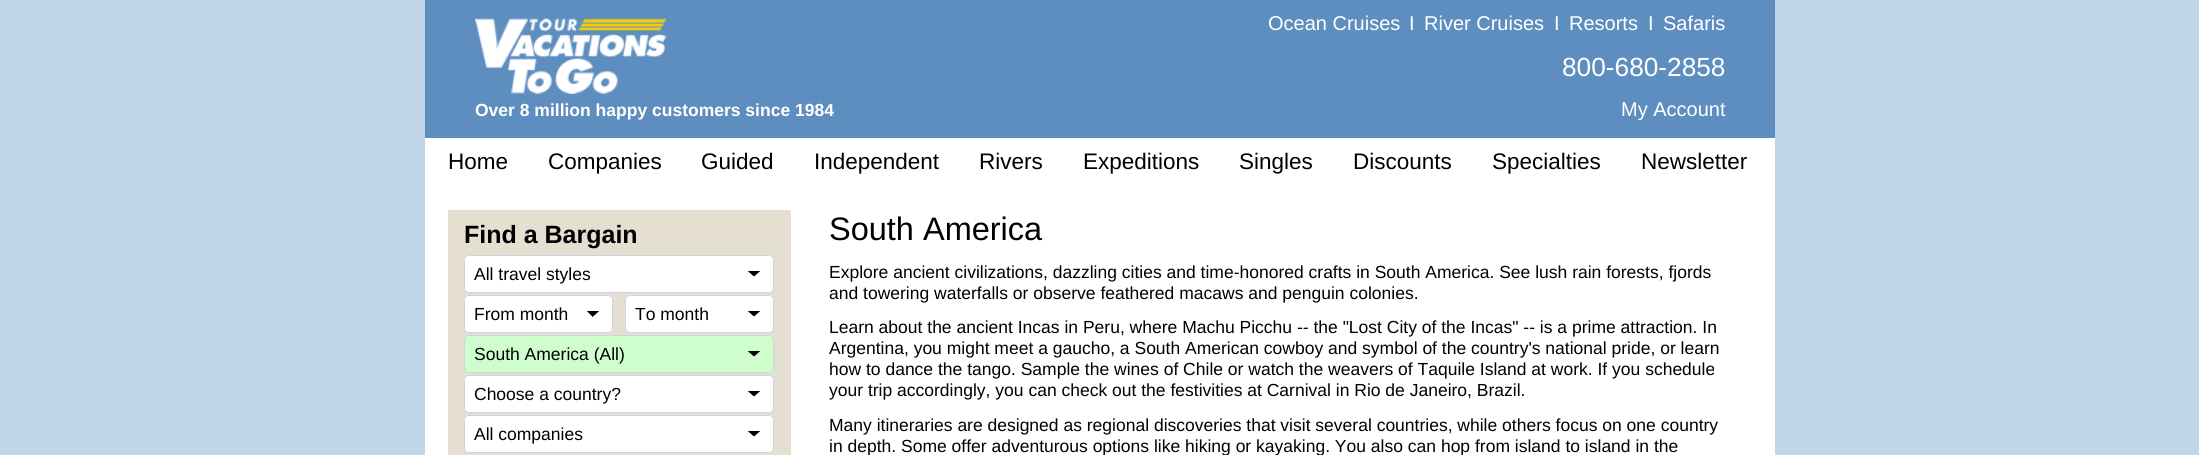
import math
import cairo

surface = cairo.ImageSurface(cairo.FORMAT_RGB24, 2199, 455)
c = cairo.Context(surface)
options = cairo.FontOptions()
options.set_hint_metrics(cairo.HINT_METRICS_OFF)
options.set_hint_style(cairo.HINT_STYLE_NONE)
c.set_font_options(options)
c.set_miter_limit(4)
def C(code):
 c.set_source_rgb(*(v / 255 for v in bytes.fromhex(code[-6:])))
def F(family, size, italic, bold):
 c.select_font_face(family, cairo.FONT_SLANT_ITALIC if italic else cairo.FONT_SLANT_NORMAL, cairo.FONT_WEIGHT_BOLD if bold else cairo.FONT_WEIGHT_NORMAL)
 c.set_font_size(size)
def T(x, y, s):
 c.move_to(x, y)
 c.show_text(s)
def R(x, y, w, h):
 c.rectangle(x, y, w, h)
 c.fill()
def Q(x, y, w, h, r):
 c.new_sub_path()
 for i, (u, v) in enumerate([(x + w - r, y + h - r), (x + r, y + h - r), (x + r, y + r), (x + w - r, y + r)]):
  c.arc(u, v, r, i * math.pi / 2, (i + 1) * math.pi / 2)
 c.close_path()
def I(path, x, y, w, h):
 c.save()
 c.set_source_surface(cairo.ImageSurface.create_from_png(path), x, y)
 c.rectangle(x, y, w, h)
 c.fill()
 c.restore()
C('c1d5e8')
c.paint()
C('ffffff')
R(425,138,1350,317)
C('5e8ebf')
R(425,0,1350,138)
I('1.png',475,18,192,76)
F('Liberation Sans',17.5,0,1)
C('ffffff')
T(475,116,'Over 8 million happy customers since 1984')
F('Liberation Sans',20,0,0)
T(1268,30,'Ocean Cruises')
T(1409,30,'I')
T(1424,30,'River Cruises')
T(1554,30,'I')
T(1569,30,'Resorts')
T(1648,30,'I')
T(1663,30,'Safaris')
F('Liberation Sans',26.25,0,0)
T(1562,76,'800-680-2858')
F('Liberation Sans',20,0,0)
T(1621,116,'My Account')
F('Liberation Sans',22.5,0,0)
C('000000')
T(448,169,'Home')
T(548,169,'Companies')
T(701,169,'Guided')
T(814,169,'Independent')
T(979,169,'Rivers')
T(1083,169,'Expeditions')
T(1239,169,'Singles')
T(1353,169,'Discounts')
T(1492,169,'Specialties')
T(1641,169,'Newsletter')
C('e5dfd1')
R(448,210,343,245)
F('Liberation Sans',25,0,1)
C('000000')
T(464,243,'Find a Bargain')
C('ffffff')
Q(464,255,310,38,5)
c.fill()
gradient = cairo.LinearGradient(754,271,760,278)
gradient.add_color_stop_rgba(.4,0,0,0,1)
gradient.add_color_stop_rgba(.5,1,1,1,1)
c.set_source(gradient)
R(754,271,6,7)
gradient = cairo.LinearGradient(748,278,754,271)
gradient.add_color_stop_rgba(.5,1,1,1,1)
gradient.add_color_stop_rgba(.6,0,0,0,1)
c.set_source(gradient)
R(748,271,6,7)
Q(464.5,255.5,309,37,4.5)
C('ced4da')
c.set_line_width(1)
c.stroke()
F('Liberation Sans',17.5,0,0)
C('000000')
T(474,280,'All travel styles')
C('ffffff')
Q(464,295,149,38,5)
c.fill()
gradient = cairo.LinearGradient(593,311,599,318)
gradient.add_color_stop_rgba(.4,0,0,0,1)
gradient.add_color_stop_rgba(.5,1,1,1,1)
c.set_source(gradient)
R(593,311,6,7)
gradient = cairo.LinearGradient(586,318,593,311)
gradient.add_color_stop_rgba(.5,1,1,1,1)
gradient.add_color_stop_rgba(.6,0,0,0,1)
c.set_source(gradient)
R(586,311,7,6)
Q(464.5,295.5,148,37,4.5)
C('ced4da')
c.stroke()
C('000000')
T(474,320,'From month')
C('ffffff')
Q(625,295,149,38,5)
c.fill()
gradient = cairo.LinearGradient(754,311,760,318)
gradient.add_color_stop_rgba(.4,0,0,0,1)
gradient.add_color_stop_rgba(.5,1,1,1,1)
c.set_source(gradient)
R(754,311,6,7)
gradient = cairo.LinearGradient(748,318,754,311)
gradient.add_color_stop_rgba(.5,1,1,1,1)
gradient.add_color_stop_rgba(.6,0,0,0,1)
c.set_source(gradient)
R(748,311,6,7)
Q(625.5,295.5,148,37,4.5)
C('ced4da')
c.stroke()
C('000000')
T(635,320,'To month')
C('cefdce')
Q(464,335,310,38,5)
c.fill()
gradient = cairo.LinearGradient(754,351,760,358)
gradient.add_color_stop_rgba(.4,0,0,0,1)
gradient.add_color_stop_rgba(.5,0.808,0.992,0.808,1)
c.set_source(gradient)
R(754,351,6,7)
gradient = cairo.LinearGradient(748,358,754,351)
gradient.add_color_stop_rgba(.5,0.808,0.992,0.808,1)
gradient.add_color_stop_rgba(.6,0,0,0,1)
c.set_source(gradient)
R(748,351,6,7)
Q(464.5,335.5,309,37,4.5)
C('ced4da')
c.stroke()
C('000000')
T(474,360,'South America (All)')
C('ffffff')
Q(464,375,310,38,5)
c.fill()
gradient = cairo.LinearGradient(754,391,760,398)
gradient.add_color_stop_rgba(.4,0,0,0,1)
gradient.add_color_stop_rgba(.5,1,1,1,1)
c.set_source(gradient)
R(754,391,6,7)
gradient = cairo.LinearGradient(748,398,754,391)
gradient.add_color_stop_rgba(.5,1,1,1,1)
gradient.add_color_stop_rgba(.6,0,0,0,1)
c.set_source(gradient)
R(748,391,6,7)
Q(464.5,375.5,309,37,4.5)
C('ced4da')
c.stroke()
C('000000')
T(474,400,'Choose a country?')
C('ffffff')
Q(464,415,310,38,5)
c.fill()
gradient = cairo.LinearGradient(754,431,760,438)
gradient.add_color_stop_rgba(.4,0,0,0,1)
gradient.add_color_stop_rgba(.5,1,1,1,1)
c.set_source(gradient)
R(754,431,6,7)
gradient = cairo.LinearGradient(748,438,754,431)
gradient.add_color_stop_rgba(.5,1,1,1,1)
gradient.add_color_stop_rgba(.6,0,0,0,1)
c.set_source(gradient)
R(748,431,6,7)
Q(464.5,415.5,309,37,4.5)
C('ced4da')
c.stroke()
C('000000')
T(474,440,'All companies')
F('Liberation Sans',32.5,0,0)
T(829,240,'South America')
F('Liberation Sans',17.5,0,0)
T(829,278,'Explore ancient civilizations, dazzling cities and time-honored crafts in South America. See lush rain forests, fjords')
T(829,299,'and towering waterfalls or observe feathered macaws and penguin colonies.')
T(829,333,'Learn about the ancient Incas in Peru, where Machu Picchu -- the "Lost City of the Incas" -- is a prime attraction. In')
T(829,354,'Argentina, you might meet a gaucho, a South American cowboy and symbol of the country\'s national pride, or learn')
T(829,375,'how to dance the tango. Sample the wines of Chile or watch the weavers of Taquile Island at work. If you schedule')
T(829,396,'your trip accordingly, you can check out the festivities at Carnival in Rio de Janeiro, Brazil.')
T(829,431,'Many itineraries are designed as regional discoveries that visit several countries, while others focus on one country')
T(829,452,'in depth. Some offer adventurous options like hiking or kayaking. You also can hop from island to island in the')
surface.write_to_png('o.png')
